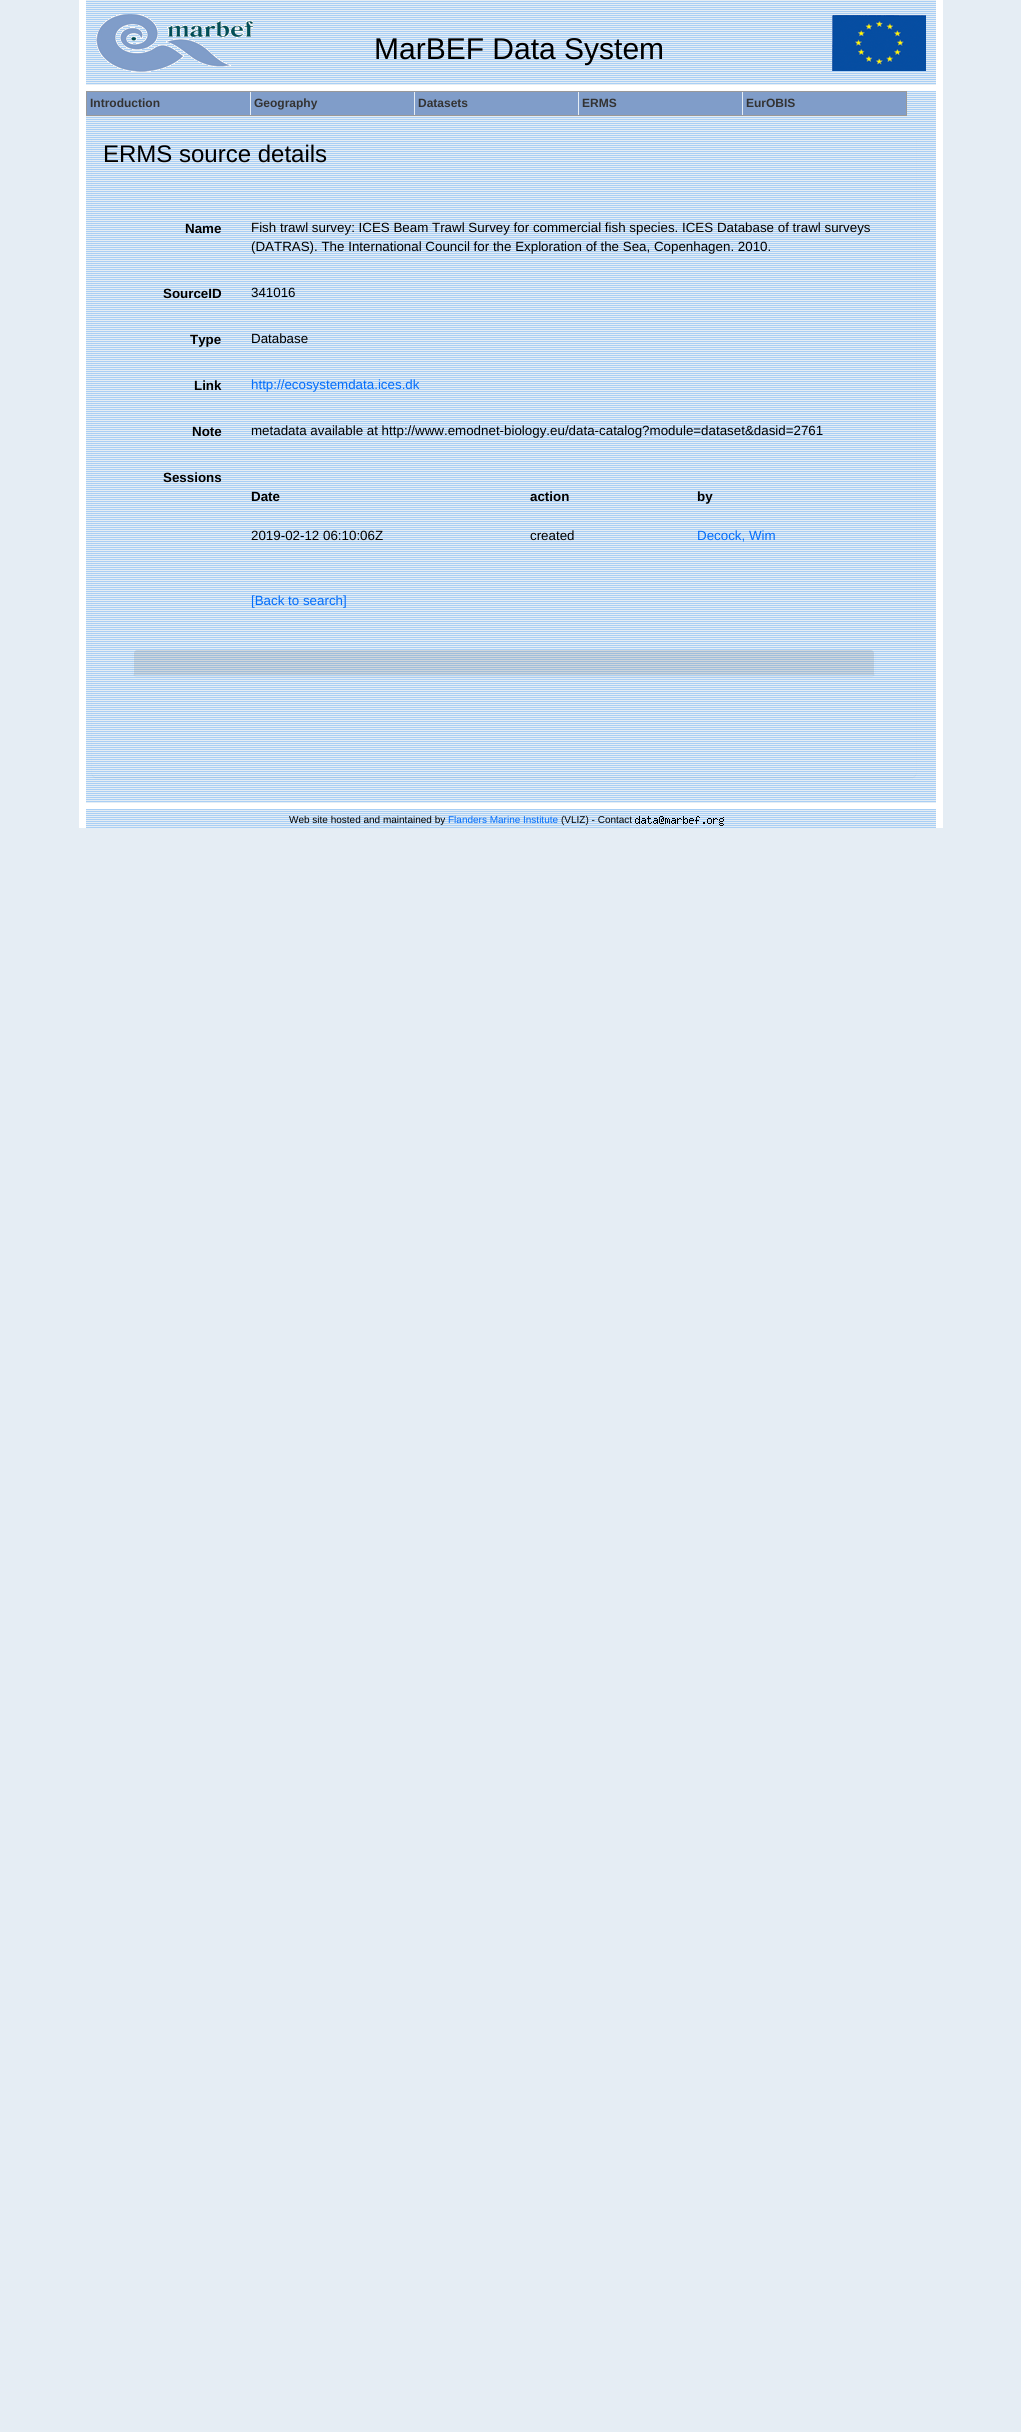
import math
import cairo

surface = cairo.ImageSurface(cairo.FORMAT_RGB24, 1021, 2432)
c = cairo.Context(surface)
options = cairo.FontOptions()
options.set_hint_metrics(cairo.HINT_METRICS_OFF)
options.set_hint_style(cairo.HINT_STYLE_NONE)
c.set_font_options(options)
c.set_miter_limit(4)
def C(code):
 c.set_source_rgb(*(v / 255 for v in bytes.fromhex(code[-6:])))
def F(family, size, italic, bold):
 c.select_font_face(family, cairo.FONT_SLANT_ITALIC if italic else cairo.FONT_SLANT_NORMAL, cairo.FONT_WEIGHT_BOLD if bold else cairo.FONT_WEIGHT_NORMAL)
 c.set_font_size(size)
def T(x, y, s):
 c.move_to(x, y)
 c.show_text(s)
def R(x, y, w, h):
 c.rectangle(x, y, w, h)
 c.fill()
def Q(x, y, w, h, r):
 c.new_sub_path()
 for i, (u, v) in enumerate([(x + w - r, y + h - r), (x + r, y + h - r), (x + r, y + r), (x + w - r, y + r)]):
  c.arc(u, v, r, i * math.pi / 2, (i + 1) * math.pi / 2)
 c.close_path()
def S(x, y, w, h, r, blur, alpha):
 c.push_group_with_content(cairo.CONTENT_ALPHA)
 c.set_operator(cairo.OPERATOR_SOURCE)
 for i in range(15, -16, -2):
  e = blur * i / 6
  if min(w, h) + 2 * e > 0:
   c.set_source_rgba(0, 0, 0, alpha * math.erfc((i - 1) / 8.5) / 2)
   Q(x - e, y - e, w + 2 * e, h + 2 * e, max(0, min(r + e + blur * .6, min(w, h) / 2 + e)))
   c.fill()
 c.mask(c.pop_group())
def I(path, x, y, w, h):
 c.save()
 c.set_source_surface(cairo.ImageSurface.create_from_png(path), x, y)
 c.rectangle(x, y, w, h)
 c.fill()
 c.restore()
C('e5edf4')
c.paint()
I('1.png',86,1,850,827)
C('ffffff')
R(79,0,7,828)
I('2.png',96,14,157,58)
F('Liberation Sans',30,0,0)
C('000000')
T(374,59,'MarBEF Data System')
I('3.png',832,15,94,56)
C('ffffff')
R(86,85,850,6)
C('809dc9')
c.rectangle(86.5,91.5,820,24)
c.fill_preserve()
C('999999')
c.set_line_width(1)
c.stroke()
F('Liberation Sans',12,0,1)
C('333333')
T(90,107,'Introduction')
C('e5edf4')
R(250,92,1,23)
C('333333')
T(254,107,'Geography')
C('e5edf4')
R(414,92,1,23)
C('333333')
T(418,107,'Datasets')
C('e5edf4')
R(578,92,1,23)
C('333333')
T(582,107,'ERMS')
C('e5edf4')
R(742,92,1,23)
C('333333')
T(746,107,'EurOBIS')
c.save()
c.set_fill_rule(cairo.FILL_RULE_EVEN_ODD)
c.new_path()
c.move_to(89,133)
c.line_to(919,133)
c.line_to(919,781)
c.line_to(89,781)
c.close_path()
c.move_to(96,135)
c.line_to(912,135)
c.curve_to(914,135,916,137,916,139)
c.line_to(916,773)
c.curve_to(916,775,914,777,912,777)
c.line_to(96,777)
c.curve_to(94,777,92,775,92,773)
c.line_to(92,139)
c.curve_to(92,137,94,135,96,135)
c.close_path()
c.clip()
C('000000')
S(92,136,824,642,4,.5,.05)
c.restore()
F('Liberation Sans',24,0,0)
C('000000')
T(103,162,'ERMS source details')
F('Liberation Sans',13.35,0,1)
T(185,233,'Name')
F('Liberation Sans',13.35,0,0)
T(251,232,'Fish trawl survey: ICES Beam Trawl Survey for commercial fish species. ICES Database of trawl surveys')
T(251,251,'(DATRAS). The International Council for the Exploration of the Sea, Copenhagen. 2010.')
F('Liberation Sans',13.35,0,1)
T(163,298,'SourceID')
F('Liberation Sans',13.35,0,0)
T(251,297,'341016')
F('Liberation Sans',13.35,0,1)
T(190,344,'Type')
F('Liberation Sans',13.35,0,0)
T(251,343,'Database')
F('Liberation Sans',13.35,0,1)
T(194,390,'Link')
F('Liberation Sans',13.35,0,0)
C('026dfb')
T(251,389,'http://ecosystemdata.ices.dk')
F('Liberation Sans',13.35,0,1)
C('000000')
T(192,436,'Note')
F('Liberation Sans',13.35,0,0)
T(251,435,'metadata available at http://www.emodnet-biology.eu/data-catalog?module=dataset&dasid=2761')
F('Liberation Sans',13.35,0,1)
T(163,482,'Sessions')
T(251,501,'Date')
T(530,501,'action')
T(697,501,'by')
F('Liberation Sans',13.35,0,0)
T(251,540,'2019-02-12 06:10:06Z')
T(530,540,'created')
C('026dfb')
T(697,540,'Decock, Wim')
T(251,605,'[Back to search]')
c.save()
c.set_fill_rule(cairo.FILL_RULE_EVEN_ODD)
c.new_path()
c.move_to(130,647)
c.line_to(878,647)
c.line_to(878,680)
c.line_to(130,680)
c.close_path()
c.move_to(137,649)
c.line_to(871,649)
c.curve_to(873,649,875,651,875,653)
c.line_to(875,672)
c.curve_to(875,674,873,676,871,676)
c.line_to(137,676)
c.curve_to(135,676,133,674,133,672)
c.line_to(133,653)
c.curve_to(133,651,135,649,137,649)
c.close_path()
c.clip()
C('000000')
S(133,650,742,27,4,.5,.05)
c.restore()
c.set_source_rgba(0.471,0.471,0.471,0.2)
c.new_path()
c.move_to(137,650)
c.line_to(871,650)
c.curve_to(872.5,650,874,651.5,874,653)
c.line_to(874,675)
c.line_to(134,675)
c.line_to(134,653)
c.curve_to(134,651.5,135.5,650,137,650)
c.close_path()
c.fill()
C('ffffff')
R(86,803,850,6)
R(936,0,7,828)
F('Liberation Sans',10,0,0)
C('000000')
T(289,823,'Web site hosted and maintained by')
C('026dfb')
T(448,823,'Flanders Marine Institute')
C('000000')
T(561,823,'(VLIZ) - Contact')
I('4.png',635,816,89,10)
surface.write_to_png('o.png')
